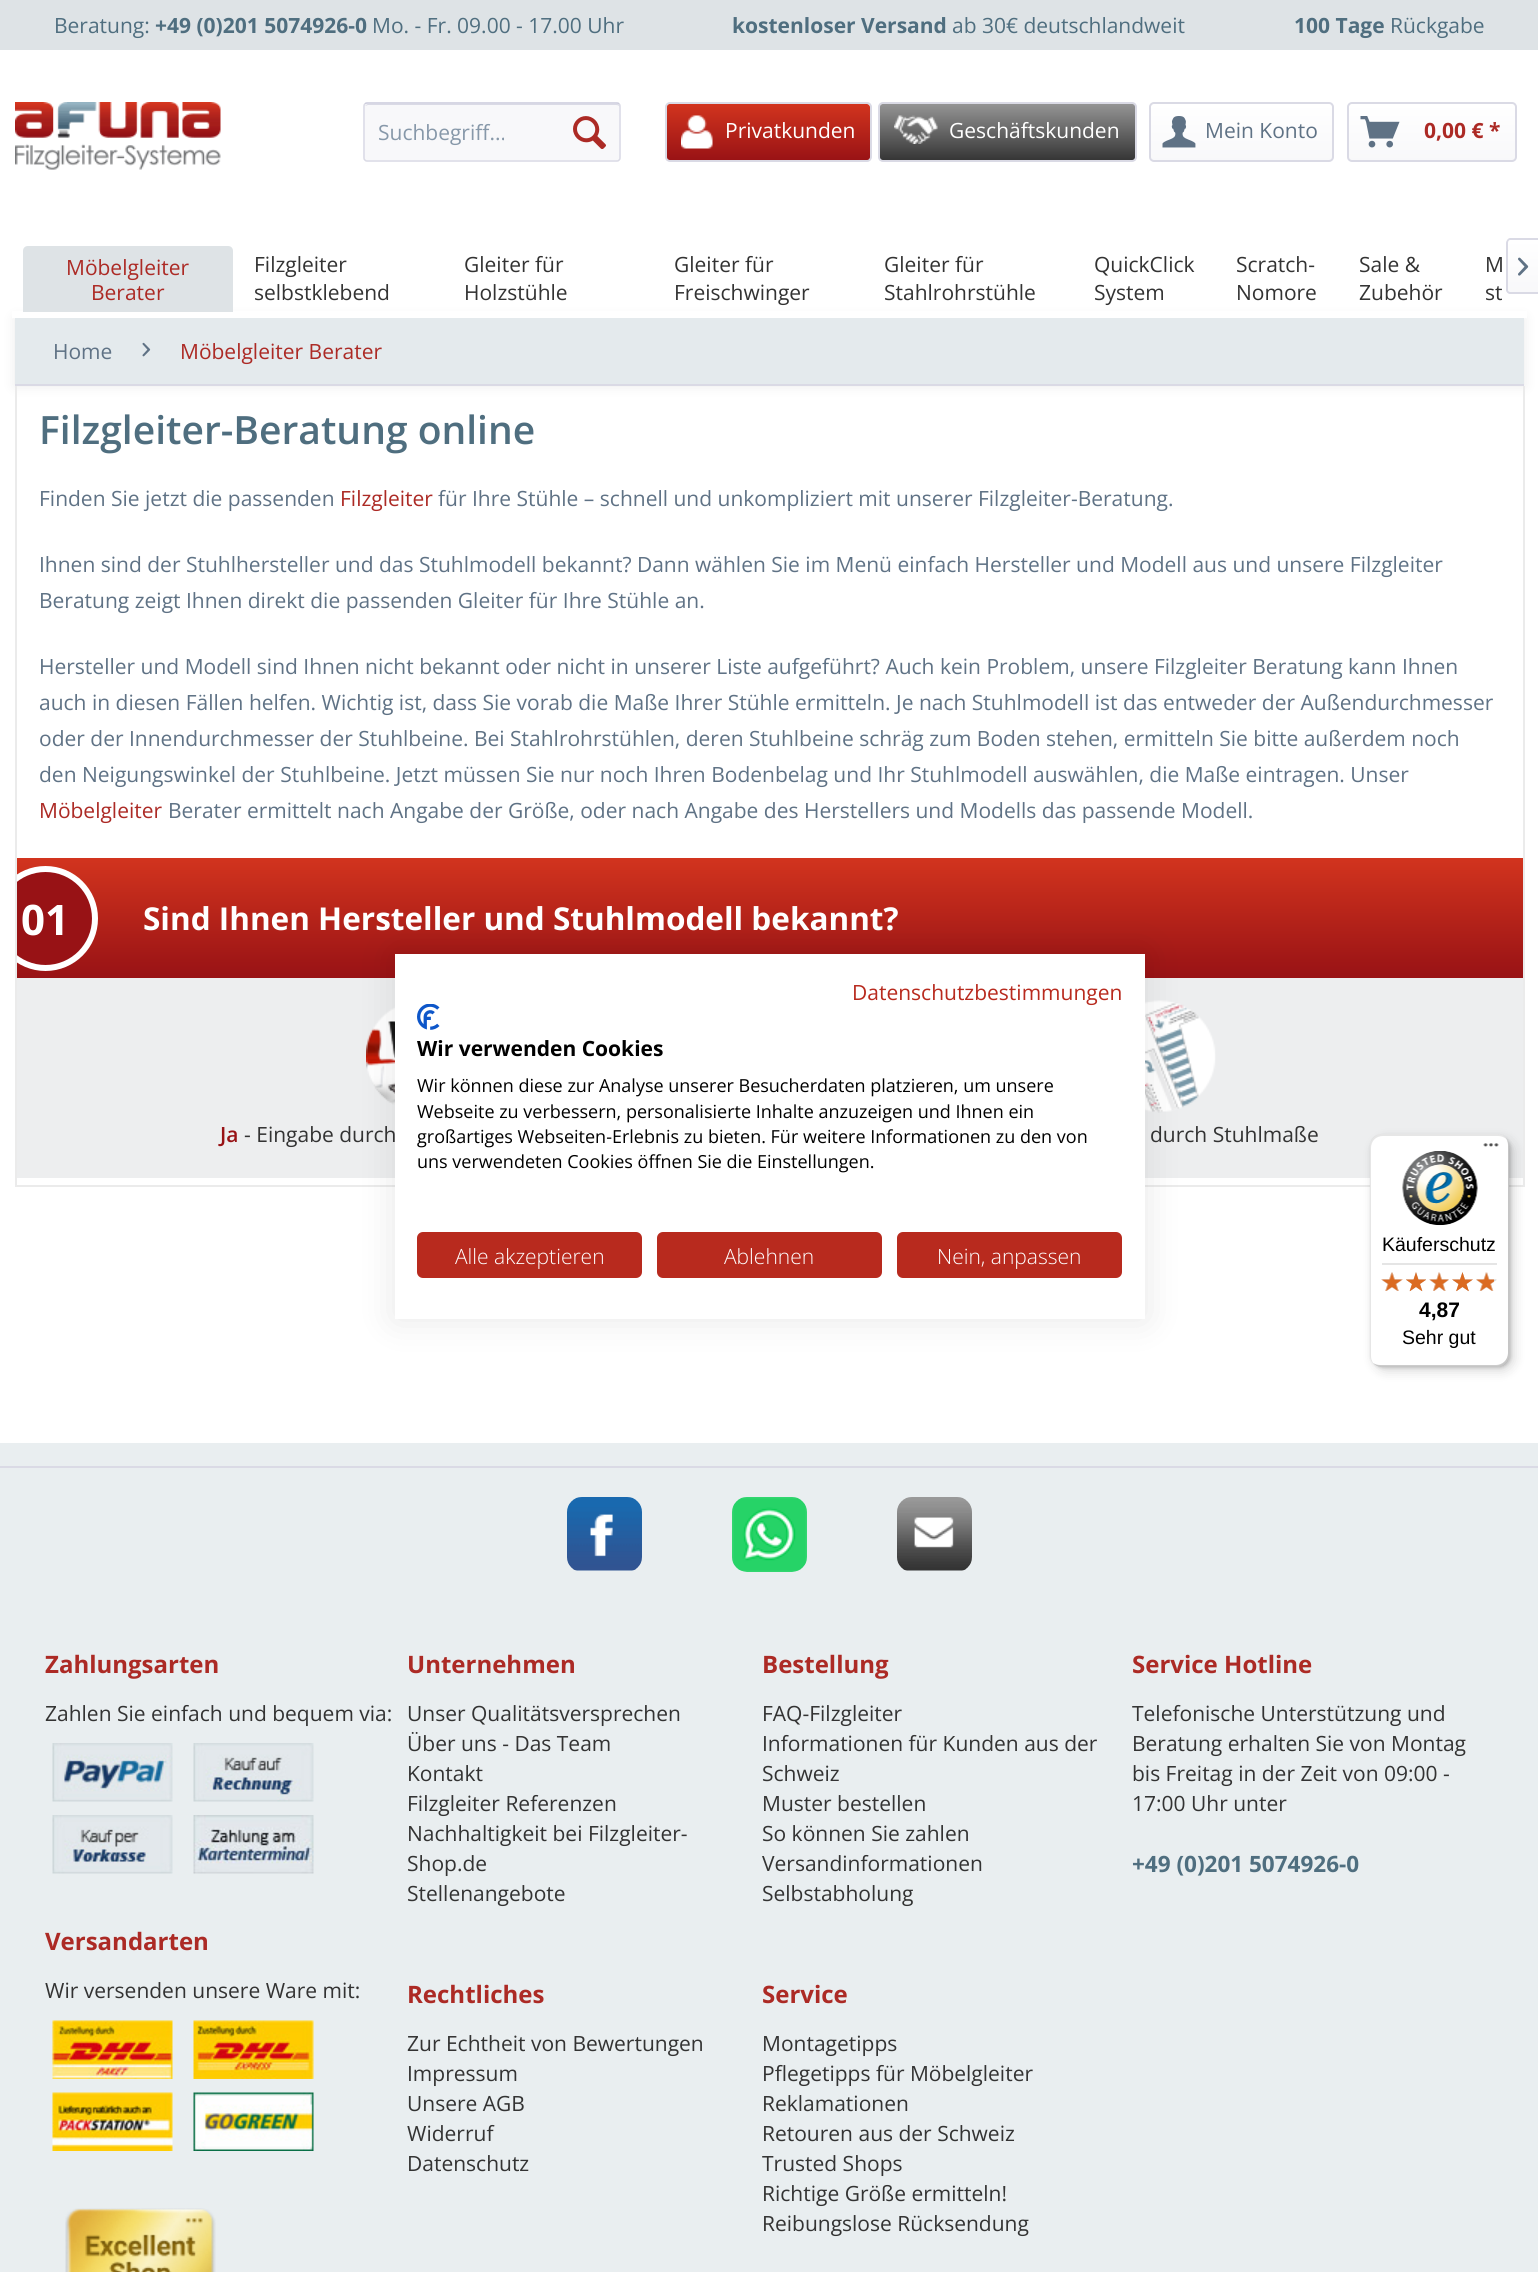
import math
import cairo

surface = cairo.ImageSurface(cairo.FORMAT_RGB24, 1538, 2272)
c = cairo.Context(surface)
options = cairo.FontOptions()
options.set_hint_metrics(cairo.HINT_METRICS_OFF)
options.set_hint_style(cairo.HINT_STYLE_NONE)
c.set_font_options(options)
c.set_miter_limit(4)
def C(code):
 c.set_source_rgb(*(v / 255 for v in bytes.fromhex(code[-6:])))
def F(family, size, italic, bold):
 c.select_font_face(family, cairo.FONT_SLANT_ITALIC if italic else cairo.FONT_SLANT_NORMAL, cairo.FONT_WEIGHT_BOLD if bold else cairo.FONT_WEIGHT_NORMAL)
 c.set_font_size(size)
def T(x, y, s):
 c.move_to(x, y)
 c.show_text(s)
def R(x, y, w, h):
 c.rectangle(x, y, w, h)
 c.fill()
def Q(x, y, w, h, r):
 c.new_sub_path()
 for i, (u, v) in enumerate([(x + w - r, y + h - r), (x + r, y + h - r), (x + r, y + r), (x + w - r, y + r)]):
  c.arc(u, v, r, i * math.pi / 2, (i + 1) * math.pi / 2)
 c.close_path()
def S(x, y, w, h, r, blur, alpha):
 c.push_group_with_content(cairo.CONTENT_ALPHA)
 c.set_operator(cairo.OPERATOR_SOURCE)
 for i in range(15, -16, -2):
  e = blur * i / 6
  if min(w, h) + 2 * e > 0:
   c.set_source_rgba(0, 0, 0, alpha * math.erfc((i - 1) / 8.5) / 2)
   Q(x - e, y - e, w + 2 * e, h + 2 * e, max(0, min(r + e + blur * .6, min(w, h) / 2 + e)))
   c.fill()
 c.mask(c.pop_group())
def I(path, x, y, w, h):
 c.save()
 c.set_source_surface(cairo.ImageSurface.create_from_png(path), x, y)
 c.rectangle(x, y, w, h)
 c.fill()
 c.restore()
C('ffffff')
c.paint()
C('dee3e6')
R(0,0,1538,50)
F('Open Sans',21,0,0)
C('4f6e7f')
T(54,33,'Beratung:')
F('Open Sans',21,0,1)
T(155,33,'+49 (0)201 5074926-0')
F('Open Sans',21,0,0)
T(372,33,'Mo. - Fr. 09.00 - 17.00 Uhr')
F('Open Sans',21,0,1)
T(732,33,'kostenloser Versand')
F('Open Sans',21,0,0)
T(952,33,'ab 30€ deutschlandweit')
F('Open Sans',21,0,1)
T(1294,33,'100 Tage')
F('Open Sans',21,0,0)
T(1390,33,'Rückgabe')
I('1.png',15,102,206,68)
C('f8f8fa')
Q(363,102,258,60,5)
c.fill()
C('dadae5')
c.new_path()
c.move_to(368,105)
c.line_to(616,105)
c.curve_to(618,105,620,106,620,108)
c.line_to(620,107)
c.curve_to(620,105,619,104,617,104)
c.line_to(368,104)
c.curve_to(367,104,366,105,365,106)
c.close_path()
c.fill()
c.new_path()
c.move_to(365,104)
c.curve_to(365.5,103,366.5,103,367.5,103)
c.line_to(616.5,103)
c.curve_to(617.5,103,618.5,103,619,104)
C('cbcbdb')
c.set_line_width(1.5)
c.stroke()
c.new_path()
c.move_to(619,104)
c.curve_to(620,104.5,620,105.5,620,106.5)
c.line_to(620,157.5)
c.curve_to(620,158.5,620,159.5,619,160)
c.curve_to(618.5,161,617.5,161,616.5,161)
c.line_to(367.5,161)
c.curve_to(366.5,161,365.5,161,365,160)
c.curve_to(364,159.5,364,158.5,364,157.5)
c.line_to(364,106.5)
c.curve_to(364,105.5,364,104.5,365,104)
C('dadae5')
c.stroke()
C('8798a9')
T(378,140,'Suchbegriff...')
I('2.png',573,116,33,33)
gradient = cairo.LinearGradient(768,104,768,161)
gradient.add_color_stop_rgba(0,0.824,0.204,0.118,1)
gradient.add_color_stop_rgba(1,0.596,0.071,0.082,1)
c.set_source(gradient)
Q(666,104,204,57,3)
c.fill()
Q(666,103,205,58,4)
C('dadae5')
c.set_line_width(2)
c.stroke()
I('3.png',681,115,32,34)
C('ffffff')
T(725,138,'Privatkunden')
gradient = cairo.LinearGradient(1007,103,1007,161)
gradient.add_color_stop_rgba(0,0.588,0.588,0.588,1)
gradient.add_color_stop_rgba(1,0.204,0.204,0.204,1)
c.set_source(gradient)
Q(879,104,257,57,3)
c.fill()
Q(879,103,257,58,4)
C('dadae5')
c.stroke()
I('4.png',894,115,44,29)
C('ffffff')
T(949,138,'Geschäftskunden')
gradient = cairo.LinearGradient(1241,104,1241,161)
gradient.add_color_stop_rgba(0,1,1,1,1)
gradient.add_color_stop_rgba(1,0.973,0.973,0.98,1)
c.set_source(gradient)
Q(1151,104,181,57,3)
c.fill()
Q(1150,103,183,58,4)
C('dadae5')
c.stroke()
I('5.png',1162,116,34,32)
C('5f7285')
T(1205,138,'Mein Konto')
gradient = cairo.LinearGradient(1432,104,1432,161)
gradient.add_color_stop_rgba(0,1,1,1,1)
gradient.add_color_stop_rgba(1,0.973,0.973,0.98,1)
c.set_source(gradient)
Q(1349,104,166,57,3)
c.fill()
Q(1348,103,168,58,4)
C('dadae5')
c.stroke()
I('6.png',1360,116,40,32)
F('Open Sans',21,0,1)
C('ac2a25')
T(1424,138,'0,00 € *')
C('ebebeb')
S(15,318,1509,68,0,6,1)
C('ffffff')
R(12,311,1515,7)
C('dee3e6')
c.new_path()
c.move_to(28,246)
c.line_to(228,246)
c.curve_to(231,246,233,248,233,251)
c.line_to(233,312)
c.line_to(23,312)
c.line_to(23,251)
c.curve_to(23,248,25,246,28,246)
c.close_path()
c.fill()
F('Open Sans',21,0,0)
C('ac2a25')
T(66,275,'Möbelgleiter')
T(91,300,'Berater')
C('333333')
T(254,272,'Filzgleiter')
T(254,300,'selbstklebend')
T(464,272,'Gleiter für')
T(464,300,'Holzstühle')
T(674,272,'Gleiter für')
T(674,300,'Freischwinger')
T(884,272,'Gleiter für')
T(884,300,'Stahlrohrstühle')
T(1094,272,'QuickClick')
T(1094,300,'System')
T(1236,272,'Scratch-')
T(1236,300,'Nomore')
T(1359,272,'Sale &')
T(1359,300,'Zubehör')
T(1485,272,'M')
T(1485,300,'st')
gradient = cairo.LinearGradient(1523,240,1523,293)
gradient.add_color_stop_rgba(0,1,1,1,1)
gradient.add_color_stop_rgba(1,0.973,0.973,0.98,1)
c.set_source(gradient)
c.new_path()
c.move_to(1511,240)
c.line_to(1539,240)
c.line_to(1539,293)
c.line_to(1511,293)
c.curve_to(1509.5,293,1508,291.5,1508,290)
c.line_to(1508,243)
c.curve_to(1508,241.5,1509.5,240,1511,240)
c.close_path()
c.fill()
C('dadae5')
c.set_fill_rule(cairo.FILL_RULE_EVEN_ODD)
c.new_path()
c.move_to(1510,238)
c.line_to(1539,238)
c.line_to(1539,294)
c.line_to(1510,294)
c.curve_to(1508,294,1506,292,1506,290)
c.line_to(1506,243)
c.curve_to(1506,241,1508,238,1510,238)
c.close_path()
c.move_to(1510,240)
c.line_to(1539,240)
c.line_to(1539,292)
c.line_to(1510,292)
c.curve_to(1509,292,1508,291,1508,290)
c.line_to(1508,243)
c.curve_to(1508,241,1509,240,1510,240)
c.close_path()
c.fill()
I('7.png',1518,257,11,19)
C('e4eaed')
R(15,318,1509,66)
C('dadae5')
R(15,384,1509,2)
C('5f7285')
T(53,359,'Home')
I('8.png',142,342,9,15)
C('ac2a25')
T(180,359,'Möbelgleiter Berater')
C('ebebeb')
R(1523,386,2,801)
R(15,1185,1509,2)
R(15,386,2,801)
F('Open Sans SemiBold',39,0,0)
C('4f6e7f')
T(39,444,'Filzgleiter-Beratung online')
F('Open Sans',21,0,0)
C('5f7285')
T(39,506,'Finden Sie jetzt die passenden')
C('ac2a25')
T(340,506,'Filzgleiter')
C('5f7285')
T(438,506,'für Ihre Stühle – schnell und unkompliziert mit unserer Filzgleiter-Beratung.')
T(39,572,'Ihnen sind der Stuhlhersteller und das Stuhlmodell bekannt? Dann wählen Sie im Menü einfach Hersteller und Modell aus und unsere Filzgleiter')
T(39,608,'Beratung zeigt Ihnen direkt die passenden Gleiter für Ihre Stühle an.')
T(39,674,'Hersteller und Modell sind Ihnen nicht bekannt oder nicht in unserer Liste aufgeführt? Auch kein Problem, unsere Filzgleiter Beratung kann Ihnen')
T(39,710,'auch in diesen Fällen helfen. Wichtig ist, dass Sie vorab die Maße Ihrer Stühle ermitteln. Je nach Stuhlmodell ist das entweder der Außendurchmesser')
T(39,746,'oder der Innendurchmesser der Stuhlbeine. Bei Stahlrohrstühlen, deren Stuhlbeine schräg zum Boden stehen, ermitteln Sie bitte außerdem noch')
T(39,782,'den Neigungswinkel der Stuhlbeine. Jetzt müssen Sie nur noch Ihren Bodenbelag und Ihr Stuhlmodell auswählen, die Maße eintragen. Unser')
C('ac2a25')
T(39,818,'Möbelgleiter')
C('5f7285')
T(168,818,'Berater ermittelt nach Angabe der Größe, oder nach Angabe des Herstellers und Modells das passende Modell.')
gradient = cairo.LinearGradient(770,858,770,978)
gradient.add_color_stop_rgba(0,0.824,0.204,0.118,1)
gradient.add_color_stop_rgba(1,0.596,0.071,0.082,1)
c.set_source(gradient)
R(17,858,1506,120)
c.save()
c.set_fill_rule(cairo.FILL_RULE_WINDING)
c.rectangle(17,858,1506,120)
c.clip()
C('981215')
c.arc(45.5,918.5,49.5,0,2 * math.pi)
c.fill_preserve()
C('ffffff')
c.set_line_width(6)
c.stroke()
c.restore()
F('Open Sans',42,0,1)
C('ffffff')
T(21,935,'01')
F('Open Sans',31.5,0,1)
T(143,930,'Sind Ihnen Hersteller und Stuhlmodell bekannt?')
C('edeeef')
R(17,978,1506,200)
I('9.png',366,1006,29,100)
F('Open Sans SemiBold',21,0,0)
C('981215')
T(220,1142,'Ja')
F('Open Sans',21,0,0)
C('333333')
T(244,1142,'- Eingabe durch')
I('10.png',1145,1000,71,113)
T(1150,1142,'durch Stuhlmaße')
C('e9eef0')
R(0,1443,1538,829)
C('dadae5')
R(0,1466,1538,2)
I('11.png',567,1497,75,74)
I('12.png',732,1497,75,75)
I('13.png',897,1497,75,74)
F('Open Sans',24,0,1)
C('ac2a25')
T(45,1673,'Zahlungsarten')
F('Open Sans',21,0,0)
C('333333')
T(45,1721,'Zahlen Sie einfach und bequem via:')
I('14.png',52,1743,121,59)
I('15.png',193,1743,121,59)
I('16.png',52,1815,121,59)
I('17.png',193,1815,121,59)
F('Open Sans',24,0,1)
C('ac2a25')
T(45,1950,'Versandarten')
F('Open Sans',21,0,0)
C('333333')
T(45,1998,'Wir versenden unsere Ware mit:')
I('18.png',52,2020,121,59)
I('19.png',193,2020,121,59)
I('20.png',52,2092,121,59)
I('21.png',193,2092,121,59)
I('22.png',65,2208,151,64)
F('Open Sans',24,0,1)
C('ac2a25')
T(407,1673,'Unternehmen')
F('Open Sans',21,0,0)
C('333333')
T(407,1721,'Unser Qualitätsversprechen')
T(407,1751,'Über uns - Das Team')
T(407,1781,'Kontakt')
T(407,1811,'Filzgleiter Referenzen')
T(407,1841,'Nachhaltigkeit bei Filzgleiter-')
T(407,1871,'Shop.de')
T(407,1901,'Stellenangebote')
F('Open Sans',24,0,1)
C('ac2a25')
T(762,1673,'Bestellung')
F('Open Sans',21,0,0)
C('333333')
T(762,1721,'FAQ-Filzgleiter')
T(762,1751,'Informationen für Kunden aus der')
T(762,1781,'Schweiz')
T(762,1811,'Muster bestellen')
T(762,1841,'So können Sie zahlen')
T(762,1871,'Versandinformationen')
T(762,1901,'Selbstabholung')
F('Open Sans',24,0,1)
C('ac2a25')
T(407,2003,'Rechtliches')
F('Open Sans',21,0,0)
C('333333')
T(407,2051,'Zur Echtheit von Bewertungen')
T(407,2081,'Impressum')
T(407,2111,'Unsere AGB')
T(407,2141,'Widerruf')
T(407,2171,'Datenschutz')
F('Open Sans',24,0,1)
C('ac2a25')
T(762,2003,'Service')
F('Open Sans',21,0,0)
C('333333')
T(762,2051,'Montagetipps')
T(762,2081,'Pflegetipps für Möbelgleiter')
T(762,2111,'Reklamationen')
T(762,2141,'Retouren aus der Schweiz')
T(762,2171,'Trusted Shops')
T(762,2201,'Richtige Größe ermitteln!')
T(762,2231,'Reibungslose Rücksendung')
F('Open Sans',24,0,1)
C('ac2a25')
T(1132,1673,'Service Hotline')
F('Open Sans',21,0,0)
C('333333')
T(1132,1721,'Telefonische Unterstützung und')
T(1132,1751,'Beratung erhalten Sie von Montag')
T(1132,1781,'bis Freitag in der Zeit von 09:00 -')
T(1132,1811,'17:00 Uhr unter')
F('Open Sans',22.5,0,1)
C('4f6e7f')
T(1132,1872,'+49 (0)201 5074926-0')
C('000000')
S(395,954,750,365,0,18,.1)
C('ffffff')
R(395,954,750,365)
F('Open Sans',21,0,0)
C('b82a1e')
T(852,1000,'Datenschutzbestimmungen')
I('23.png',417,1004,23,26)
F('Open Sans',21,0,1)
C('000000')
T(417,1056,'Wir verwenden Cookies')
F('Open Sans',18,0,0)
T(417,1092,'Wir können diese zur Analyse unserer Besucherdaten platzieren, um unsere')
T(417,1118,'Webseite zu verbessern, personalisierte Inhalte anzuzeigen und Ihnen ein')
T(417,1143,'großartiges Webseiten-Erlebnis zu bieten. Für weitere Informationen zu den von')
T(417,1168,'uns verwendeten Cookies öffnen Sie die Einstellungen.')
C('b82a1e')
Q(418,1233,223,44,5)
c.fill_preserve()
c.stroke()
F('Open Sans Light',21,0,0)
C('ffffff')
T(455,1264,'Alle akzeptieren')
C('b82a1e')
Q(658,1233,223,44,5)
c.fill_preserve()
c.stroke()
C('ffffff')
T(724,1264,'Ablehnen')
C('b82a1e')
Q(898,1233,223,44,5)
c.fill_preserve()
c.stroke()
C('ffffff')
T(937,1264,'Nein, anpassen')
C('000000')
S(1374,1139,140,232,12,6,.15)
S(1371,1136,140,232,12,1.5,.15)
C('ffffff')
Q(1370,1134,139,233,12)
c.fill()
c.set_source_rgba(0,0,0,0.1)
c.set_fill_rule(cairo.FILL_RULE_WINDING)
c.new_path()
c.move_to(1383,1136)
c.line_to(1498,1136)
c.curve_to(1502,1136,1506,1138,1508,1141)
c.curve_to(1506,1137,1502,1134,1497,1134)
c.line_to(1382,1134)
c.curve_to(1375,1134,1370,1139,1370,1146)
c.line_to(1370,1355)
c.curve_to(1370,1358,1371,1361,1373,1363)
c.curve_to(1372,1361,1371,1359,1371,1356)
c.line_to(1371,1148)
c.curve_to(1371,1141,1376,1136,1383,1136)
c.close_path()
c.fill()
c.set_source_rgba(0,0,0,0.2)
c.new_path()
c.move_to(1373,1363)
c.curve_to(1375,1365,1378,1367,1382,1367)
c.line_to(1497,1367)
c.curve_to(1504,1367,1509,1362,1509,1355)
c.line_to(1509,1146)
c.curve_to(1509,1143,1508,1141,1506,1139)
c.curve_to(1507,1140,1508,1142,1508,1144)
c.line_to(1508,1353)
c.curve_to(1508,1360,1502,1365,1496,1365)
c.line_to(1380,1365)
c.curve_to(1377,1365,1375,1364,1373,1363)
c.close_path()
c.fill()
c.set_source_rgba(0.196,0.196,0.196,0.2)
c.new_path()
c.move_to(1373,1363)
c.curve_to(1375,1365,1378,1367,1382,1367)
c.line_to(1497,1367)
c.curve_to(1504,1367,1509,1362,1509,1355)
c.line_to(1509,1146)
c.curve_to(1509,1143,1508,1140,1506,1138)
c.curve_to(1507,1140,1508,1142,1508,1145)
c.line_to(1508,1354)
c.curve_to(1508,1360,1503,1366,1496,1366)
c.line_to(1381,1366)
c.curve_to(1378,1366,1375,1365,1373,1363)
c.close_path()
c.fill()
c.set_source_rgba(1,1,1,0.3)
c.new_path()
c.move_to(1373,1363)
c.curve_to(1375,1365,1378,1367,1382,1367)
c.line_to(1497,1367)
c.curve_to(1504,1367,1509,1362,1509,1355)
c.line_to(1509,1146)
c.curve_to(1509,1142,1507,1139,1505,1137)
c.curve_to(1507,1139,1508,1142,1508,1145)
c.line_to(1508,1354)
c.curve_to(1508,1360,1503,1366,1496,1366)
c.line_to(1381,1366)
c.curve_to(1378,1366,1375,1365,1373,1363)
c.close_path()
c.fill()
I('24.png',1483,1143,16,4)
I('25.png',1402,1151,76,75)
F('Liberation Sans',19.5,0,0)
C('000000')
T(1382,1251,'Käuferschutz')
C('e5e5e5')
R(1382,1263,115,2)
I('26.png',1381,1272,22,19)
I('27.png',1406,1272,20,19)
I('28.png',1429,1272,20,19)
I('29.png',1452,1272,21,19)
I('30.png',1476,1272,21,19)
I('31.png',1381,1272,22,19)
I('32.png',1406,1272,20,20)
I('33.png',1429,1272,20,19)
I('34.png',1452,1272,21,20)
I('35.png',1476,1272,18,19)
F('Liberation Sans',21,0,1)
C('000000')
T(1419,1317,'4,87')
F('Liberation Sans',19.5,0,0)
T(1402,1344,'Sehr gut')
surface.write_to_png('o.png')
